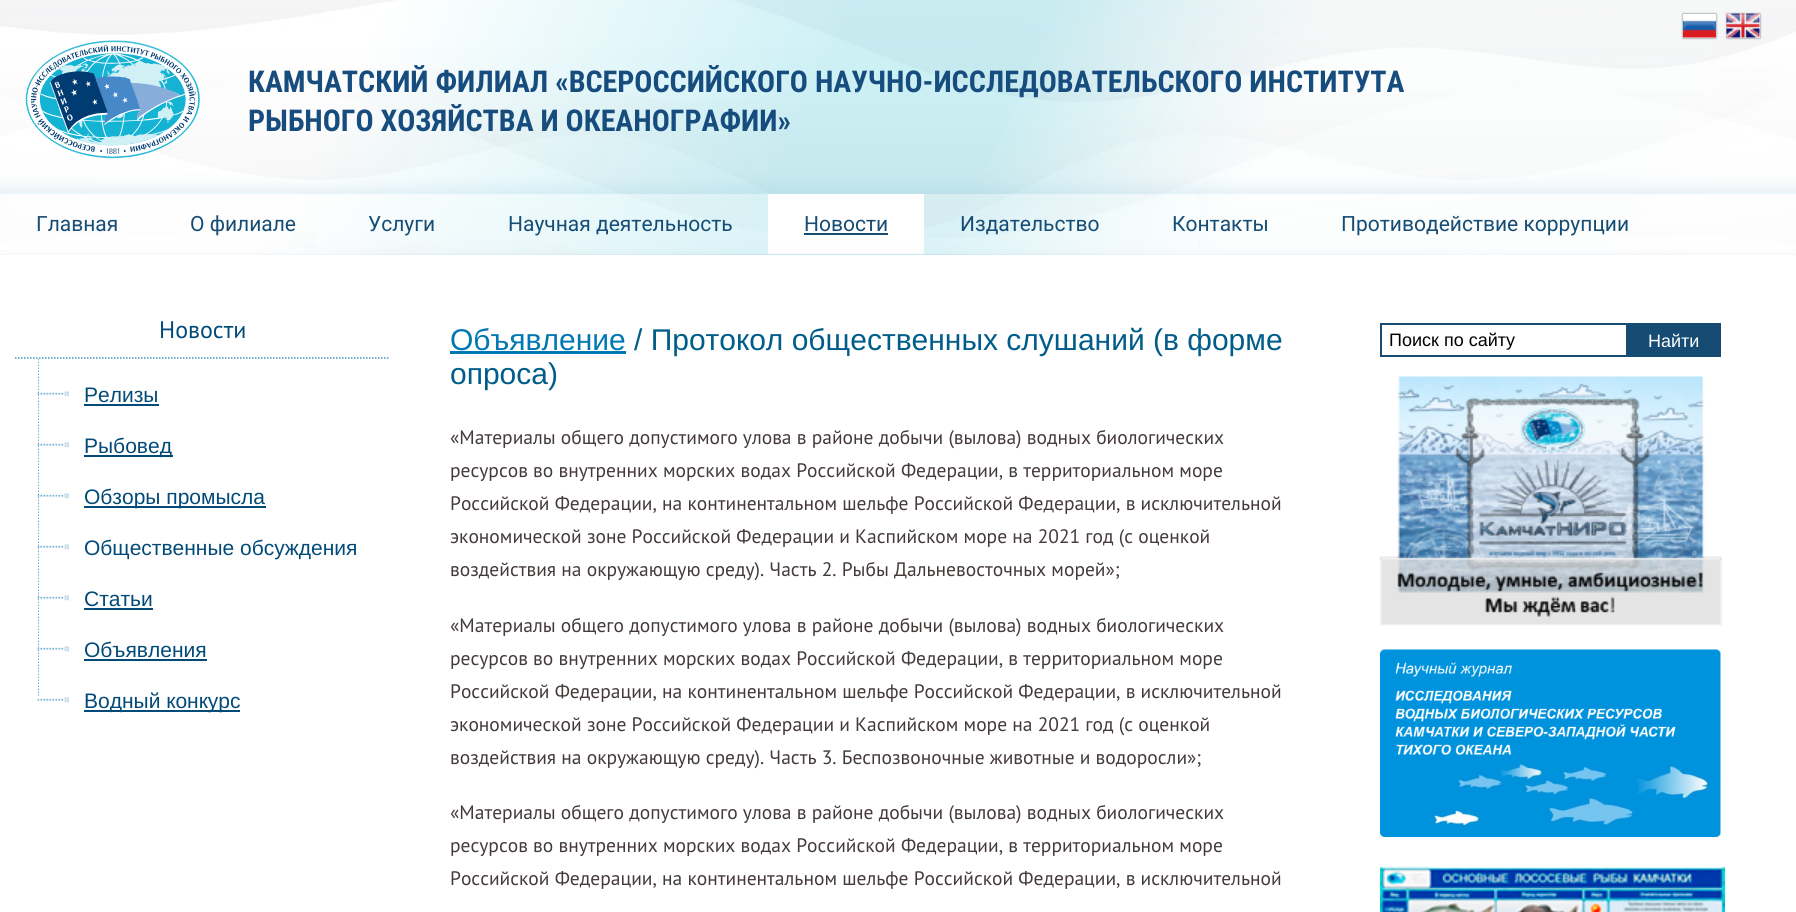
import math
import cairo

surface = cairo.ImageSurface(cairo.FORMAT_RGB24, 1796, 912)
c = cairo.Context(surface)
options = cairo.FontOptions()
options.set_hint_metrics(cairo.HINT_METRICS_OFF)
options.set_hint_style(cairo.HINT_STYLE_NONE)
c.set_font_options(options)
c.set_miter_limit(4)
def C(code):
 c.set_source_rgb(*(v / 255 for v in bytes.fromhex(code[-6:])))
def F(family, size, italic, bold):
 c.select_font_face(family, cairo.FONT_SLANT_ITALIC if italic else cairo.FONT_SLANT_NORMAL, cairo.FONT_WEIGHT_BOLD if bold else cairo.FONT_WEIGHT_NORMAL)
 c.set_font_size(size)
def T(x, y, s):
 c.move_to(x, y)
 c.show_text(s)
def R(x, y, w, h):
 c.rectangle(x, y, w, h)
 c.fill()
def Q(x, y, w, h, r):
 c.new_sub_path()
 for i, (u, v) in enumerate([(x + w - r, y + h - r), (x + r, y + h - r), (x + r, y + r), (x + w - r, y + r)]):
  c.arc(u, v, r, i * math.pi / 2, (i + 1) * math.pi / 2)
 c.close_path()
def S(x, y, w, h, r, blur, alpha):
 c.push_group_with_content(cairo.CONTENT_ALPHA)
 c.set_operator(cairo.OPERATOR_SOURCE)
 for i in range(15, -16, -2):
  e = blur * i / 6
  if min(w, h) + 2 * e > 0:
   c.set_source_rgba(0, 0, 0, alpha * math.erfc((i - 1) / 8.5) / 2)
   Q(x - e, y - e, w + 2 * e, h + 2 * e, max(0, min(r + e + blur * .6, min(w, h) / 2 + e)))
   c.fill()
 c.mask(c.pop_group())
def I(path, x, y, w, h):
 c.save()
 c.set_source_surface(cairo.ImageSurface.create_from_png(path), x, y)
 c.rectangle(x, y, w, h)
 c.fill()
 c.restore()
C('ffffff')
c.paint()
I('1.png',0,0,1796,255)
C('5b6b73')
S(1683,14,33,24,0,1,1)
C('ffffff')
R(1683,14,33,24)
I('2.png',1683,20,33,18)
C('5b6b73')
S(1727,14,33,24,0,1,1)
C('ffffff')
R(1727,14,33,24)
I('3.png',1726,13,34,25)
I('4.png',25,40,175,119)
F('Roboto Condensed',30,0,1)
C('174d7e')
T(248,92,'КАМЧАТСКИЙ ФИЛИАЛ «ВСЕРОССИЙСКОГО НАУЧНО-ИССЛЕДОВАТЕЛЬСКОГО ИНСТИТУТА')
T(248,131,'РЫБНОГО ХОЗЯЙСТВА И ОКЕАНОГРАФИИ»')
c.save()
c.set_fill_rule(cairo.FILL_RULE_EVEN_ODD)
c.new_path()
c.move_to(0,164)
c.line_to(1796,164)
c.line_to(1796,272)
c.line_to(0,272)
c.close_path()
c.move_to(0,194)
c.line_to(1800,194)
c.line_to(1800,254)
c.line_to(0,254)
c.close_path()
c.clip()
C('98c7e1')
S(0,188,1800,60,0,7.5,.25)
c.restore()
c.set_source_rgba(1,1,1,0.3)
R(315,194,882,60)
F('Roboto',21,0,0)
C('164d75')
T(36,231,'Главная')
T(190,231,'О филиале')
T(368,231,'Услуги')
T(508,231,'Научная деятельность')
C('ffffff')
R(768,194,156,60)
C('164d75')
T(804,231,'Новости')
R(804,233,84,2)
T(960,231,'Издательство')
T(1172,231,'Контакты')
T(1341,231,'Противодействие коррупции')
C('516a80')
S(0,266,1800,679,0,11,.23)
C('ffffff')
R(0,255,1796,657)
c.new_path()
c.move_to(15,358)
c.line_to(390,358)
C('4195c3')
c.set_line_width(1.5)
c.set_dash([1.5,1.5])
c.stroke()
F('PT Sans',24,0,0)
C('024b78')
T(159,338,'Новости')
I('5.png',37,391,32,6)
F('Liberation Sans',21,0,0)
T(84,402,'Релизы')
R(84,404,75,2)
I('5.png',37,442,32,6)
R(84,455,89,2)
T(84,453,'Рыбовед')
I('5.png',37,493,32,6)
R(84,506,182,2)
T(84,504,'Обзоры промысла')
I('5.png',37,544,32,6)
T(84,555,'Общественные обсуждения')
I('5.png',37,595,32,6)
T(84,606,'Статьи')
R(84,608,69,2)
I('5.png',37,646,32,6)
c.save()
c.rectangle(38,359,352,357)
c.clip()
c.new_path()
c.move_to(38,-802.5)
c.line_to(38,697.5)
C('4195c3')
c.stroke()
c.restore()
T(84,657,'Объявления')
R(84,659,123,2)
I('5.png',37,697,32,6)
R(84,710,156,2)
T(84,708,'Водный конкурс')
F('Liberation Sans',30,0,0)
C('0078b2')
T(450,350,'Объявление')
R(450,351,176,3)
C('005d8a')
T(634,350,'/ Протокол общественных слушаний (в форме')
T(450,384,'опроса)')
F('PT Sans',19.5,0,0)
C('443a3a')
T(450,444,'«Материалы общего допустимого улова в районе добычи (вылова) водных биологических')
T(450,477,'ресурсов во внутренних морских водах Российской Федерации, в территориальном море')
T(450,510,'Российской Федерации, на континентальном шельфе Российской Федерации, в исключительной')
T(450,543,'экономической зоне Российской Федерации и Каспийском море на 2021 год (с оценкой')
T(450,576,'воздействия на окружающую среду). Часть 2. Рыбы Дальневосточных морей»;')
T(450,632,'«Материалы общего допустимого улова в районе добычи (вылова) водных биологических')
T(450,665,'ресурсов во внутренних морских водах Российской Федерации, в территориальном море')
T(450,698,'Российской Федерации, на континентальном шельфе Российской Федерации, в исключительной')
T(450,731,'экономической зоне Российской Федерации и Каспийском море на 2021 год (с оценкой')
T(450,764,'воздействия на окружающую среду). Часть 3. Беспозвоночные животные и водоросли»;')
T(450,819,'«Материалы общего допустимого улова в районе добычи (вылова) водных биологических')
T(450,852,'ресурсов во внутренних морских водах Российской Федерации, в территориальном море')
T(450,885,'Российской Федерации, на континентальном шельфе Российской Федерации, в исключительной')
c.rectangle(1381,324,246,32)
C('164c74')
c.set_line_width(2)
c.set_dash([])
c.stroke()
F('Liberation Sans',18,0,0)
C('000000')
T(1389,346,'Поиск по сайту')
C('164c74')
R(1628,323,93,34)
C('ffffff')
T(1648,347,'Найти')
I('6.png',1380,376,342,250)
I('7.png',1380,649,341,188)
I('8.png',1380,866,345,46)
surface.write_to_png('o.png')
